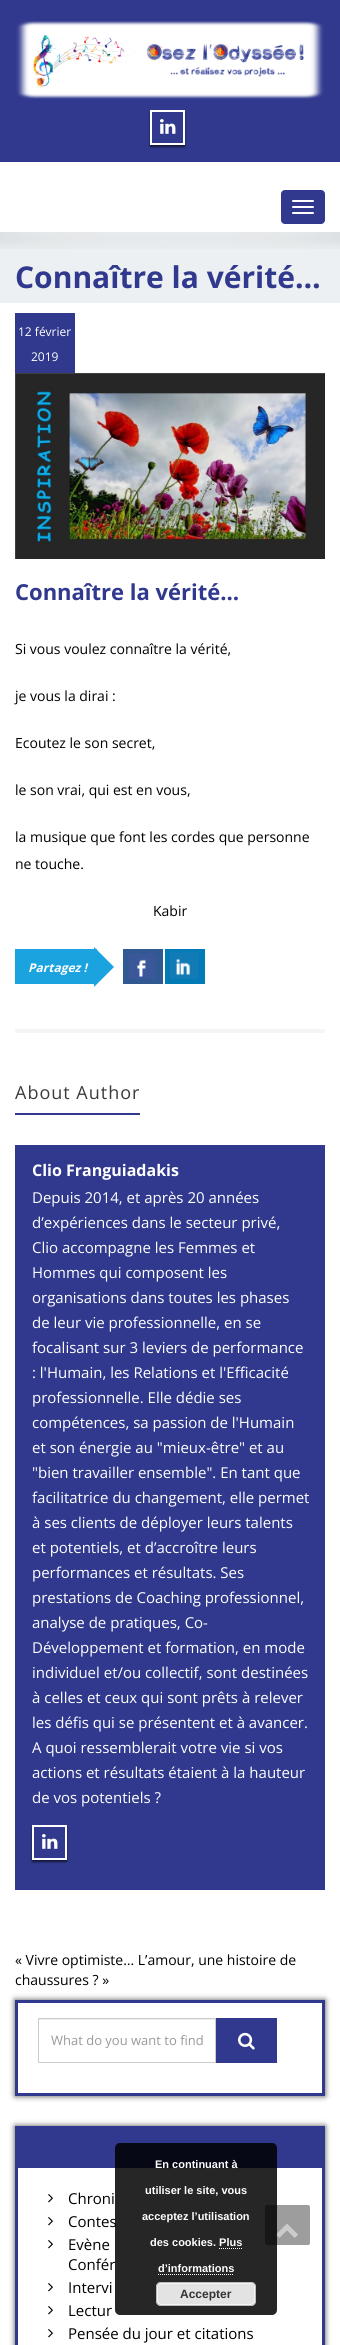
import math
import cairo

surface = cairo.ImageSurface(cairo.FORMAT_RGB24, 340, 2345)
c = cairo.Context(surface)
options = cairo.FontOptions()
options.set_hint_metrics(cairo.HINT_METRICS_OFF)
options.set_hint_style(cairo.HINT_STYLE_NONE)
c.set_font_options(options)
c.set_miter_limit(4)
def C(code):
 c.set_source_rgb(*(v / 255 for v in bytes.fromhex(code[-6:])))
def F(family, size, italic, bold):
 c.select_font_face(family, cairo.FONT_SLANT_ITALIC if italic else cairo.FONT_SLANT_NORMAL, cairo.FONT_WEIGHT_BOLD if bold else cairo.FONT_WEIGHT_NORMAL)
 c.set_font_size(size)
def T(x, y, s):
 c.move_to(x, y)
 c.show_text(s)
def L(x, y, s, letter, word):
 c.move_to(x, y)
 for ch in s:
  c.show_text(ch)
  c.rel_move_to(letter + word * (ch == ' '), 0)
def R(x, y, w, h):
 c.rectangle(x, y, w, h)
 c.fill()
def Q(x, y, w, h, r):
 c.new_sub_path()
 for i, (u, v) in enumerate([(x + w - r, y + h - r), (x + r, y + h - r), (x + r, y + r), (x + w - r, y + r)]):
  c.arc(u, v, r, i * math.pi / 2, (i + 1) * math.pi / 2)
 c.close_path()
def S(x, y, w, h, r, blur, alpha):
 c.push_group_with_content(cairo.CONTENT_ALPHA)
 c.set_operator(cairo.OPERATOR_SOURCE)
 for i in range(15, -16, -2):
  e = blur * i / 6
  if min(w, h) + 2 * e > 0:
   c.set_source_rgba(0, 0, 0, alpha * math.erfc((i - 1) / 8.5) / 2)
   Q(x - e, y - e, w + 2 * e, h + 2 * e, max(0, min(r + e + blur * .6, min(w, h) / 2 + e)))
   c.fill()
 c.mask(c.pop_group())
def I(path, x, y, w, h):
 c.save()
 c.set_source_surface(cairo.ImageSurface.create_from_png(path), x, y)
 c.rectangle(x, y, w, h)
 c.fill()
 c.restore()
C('ffffff')
c.paint()
C('30398d')
R(0,0,340,162)
I('1.png',16,21,308,78)
c.save()
c.set_fill_rule(cairo.FILL_RULE_EVEN_ODD)
c.new_path()
c.move_to(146,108)
c.line_to(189,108)
c.line_to(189,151)
c.line_to(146,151)
c.close_path()
c.move_to(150,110)
c.line_to(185,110)
c.line_to(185,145)
c.line_to(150,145)
c.close_path()
c.clip()
C('000000')
S(150,112,35,35,0,1,.6)
c.restore()
c.rectangle(151,111,33,33)
C('ffffff')
c.stroke()
I('2.png',160,119,16,15)
C('30398d')
Q(281.5,190.5,43,33,3.5)
c.fill_preserve()
c.set_line_width(1)
c.stroke()
C('ffffff')
Q(292,200,22,2,1)
c.fill()
Q(292,206,22,2,1)
c.fill()
Q(292,212,22,2,1)
c.fill()
C('edf0f2')
R(0,232,340,71)
I('3.png',0,232,340,17)
F('Open Sans',30,0,1)
C('30398d')
T(15,288,'Connaître la vérité…')
R(15,313,60,60)
F('Open Sans',12,0,0)
C('ffffff')
T(18,336,'12 février')
T(31,361,'2019')
I('4.png',15,373,310,186)
F('Open Sans',22,0,1)
C('30398d')
T(15,600,'Connaître la vérité…')
F('Open Sans',14,0,0)
C('000000')
T(15,654,'Si vous voulez connaître la vérité,')
T(15,701,'je vous la dirai :')
T(15,748,'Ecoutez le son secret,')
T(15,795,'le son vrai, qui est en vous,')
T(15,842,'la musique que font les cordes que personne')
T(15,869,'ne touche.')
T(153,916,'Kabir')
C('1ba3df')
R(15,949,82,35)
F('Open Sans',12,1,1)
C('ffffff')
T(28,972,'Partagez !')
C('1ba3df')
c.new_path()
c.move_to(94,987)
c.line_to(94,947)
c.line_to(114,967)
c.close_path()
c.fill()
C('305891')
R(123,949,40,35)
I('5.png',128,953,28,26)
C('007bb6')
R(165,949,40,35)
I('6.png',170,952,29,27)
C('f5f5f5')
R(15,1029,310,4)
C('30398d')
R(15,1113,125,2)
F('Open Sans',18,0,0)
C('3b3b3b')
L(15,1099,'About Author',1,0)
C('30398d')
R(15,1145,310,745)
F('Open Sans',16,0,1)
C('ffffff')
T(32,1176,'Clio Franguiadakis')
F('Open Sans',15,0,0)
T(32,1203,'Depuis 2014, et après 20 années')
T(32,1228,'d’expériences dans le secteur privé,')
T(32,1253,'Clio accompagne les Femmes et')
T(32,1278,'Hommes qui composent les')
T(32,1303,'organisations dans toutes les phases')
T(32,1328,'de leur vie professionnelle, en se')
T(32,1353,'focalisant sur 3 leviers de performance')
T(32,1378,': l\'Humain, les Relations et l\'Efficacité')
T(32,1403,'professionnelle. Elle dédie ses')
T(32,1428,'compétences, sa passion de l\'Humain')
T(32,1453,'et son énergie au "mieux-être" et au')
T(32,1478,'"bien travailler ensemble". En tant que')
T(32,1503,'facilitatrice du changement, elle permet')
T(32,1528,'à ses clients de déployer leurs talents')
T(32,1553,'et potentiels, et d’accroître leurs')
T(32,1578,'performances et résultats. Ses')
T(32,1603,'prestations de Coaching professionnel,')
T(32,1628,'analyse de pratiques, Co-')
T(32,1653,'Développement et formation, en mode')
T(32,1678,'individuel et/ou collectif, sont destinées')
T(32,1703,'à celles et ceux qui sont prêts à relever')
T(32,1728,'les défis qui se présentent et à avancer.')
T(32,1753,'A quoi ressemblerait votre vie si vos')
T(32,1778,'actions et résultats étaient à la hauteur')
T(32,1803,'de vos potentiels ?')
c.save()
c.set_fill_rule(cairo.FILL_RULE_EVEN_ODD)
c.new_path()
c.move_to(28,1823)
c.line_to(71,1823)
c.line_to(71,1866)
c.line_to(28,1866)
c.close_path()
c.move_to(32,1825)
c.line_to(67,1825)
c.line_to(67,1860)
c.line_to(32,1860)
c.close_path()
c.clip()
C('000000')
S(32,1827,35,35,0,1,.6)
c.restore()
c.rectangle(33,1826,33,33)
c.set_line_width(2)
c.stroke()
I('2.png',42,1834,16,15)
F('Open Sans',14,0,0)
C('000000')
T(15,1965,'« Vivre optimiste… L’amour, une histoire de')
T(15,1985,'chaussures ? »')
c.save()
c.set_fill_rule(cairo.FILL_RULE_EVEN_ODD)
c.new_path()
c.move_to(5,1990)
c.line_to(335,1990)
c.line_to(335,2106)
c.line_to(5,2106)
c.close_path()
c.move_to(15,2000)
c.line_to(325,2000)
c.line_to(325,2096)
c.line_to(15,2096)
c.close_path()
c.clip()
C('000000')
S(15,2000,310,96,0,3,.7)
c.restore()
c.rectangle(16.5,2001.5,307,93)
C('30398d')
c.set_line_width(3)
c.stroke()
C('ececec')
R(39,2019,176,1)
c.rectangle(38.5,2018.5,177,44)
C('cccccc')
c.set_line_width(1)
c.stroke()
F('Open Sans',13,0,0)
C('999999')
T(51,2045,'What do you want to find')
C('30398d')
R(216,2018,61,45)
I('7.png',238,2032,17,18)
c.save()
c.set_fill_rule(cairo.FILL_RULE_EVEN_ODD)
c.new_path()
c.move_to(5,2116)
c.line_to(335,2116)
c.line_to(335,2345)
c.line_to(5,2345)
c.close_path()
c.move_to(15,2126)
c.line_to(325,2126)
c.line_to(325,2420)
c.line_to(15,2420)
c.close_path()
c.clip()
C('000000')
S(15,2126,310,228,0,3,.7)
c.restore()
c.rectangle(16.5,2127.5,307,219)
c.set_line_width(3)
c.stroke()
R(18,2129,304,39)
I('8.png',48,2194,5,9)
F('Open Sans',15,0,0)
C('000000')
T(68,2204,'Chroni')
I('8.png',48,2217,5,9)
T(68,2227,'Contes')
I('8.png',48,2240,5,9)
T(68,2250,'Evène')
T(68,2270,'Confér')
I('8.png',48,2283,5,9)
T(68,2293,'Intervi')
I('8.png',48,2306,5,9)
T(68,2316,'Lectur')
I('8.png',48,2329,5,9)
T(68,2339,'Pensée du jour et citations')
C('9d9d9d')
Q(265,2205,45,40,2)
c.fill()
I('9.png',276,2224,22,14)
c.set_source_rgba(0,0,0,0.85)
Q(115,2143,162,172,5)
c.fill()
F('Liberation Sans',11,0,1)
C('ffffff')
T(155,2168,'En continuant à')
T(145,2194,'utiliser le site, vous')
T(142,2220,'acceptez l’utilisation')
T(150,2246,'des cookies. Plus')
T(158,2272,'d’informations')
c.new_path()
c.move_to(219,2248.5)
c.line_to(242,2248.5)
c.set_line_width(1)
c.set_dash([1,1])
c.stroke()
c.new_path()
c.move_to(158,2274.5)
c.line_to(234,2274.5)
c.stroke()
C('e3e3e3')
Q(156,2282,100,24,5)
c.fill()
Q(157.5,2283.5,97,21,3.5)
C('f6f6f6')
c.set_dash([])
c.stroke()
Q(156.5,2282.5,99,23,4.5)
C('bbbbbb')
c.stroke()
F('Liberation Sans',12,0,1)
C('333333')
T(180,2298,'Accepter')
surface.write_to_png('o.png')
